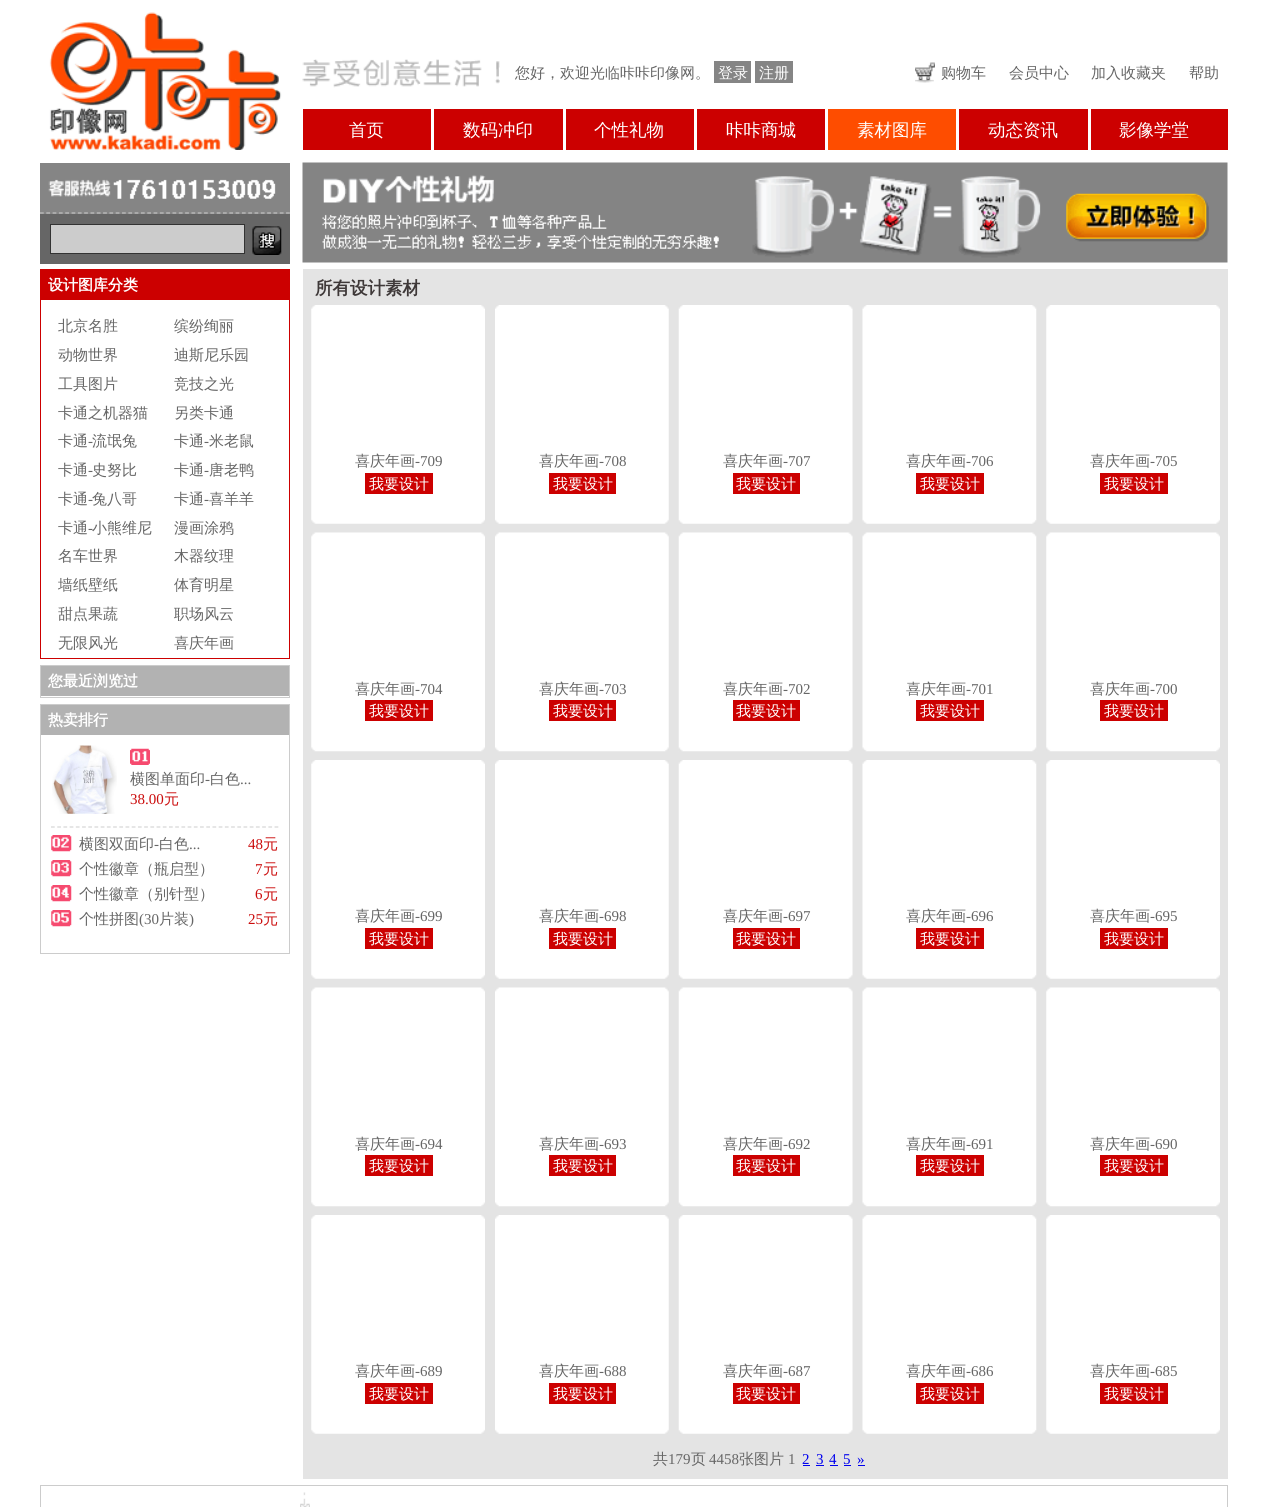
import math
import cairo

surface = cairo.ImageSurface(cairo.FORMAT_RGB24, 1267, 1507)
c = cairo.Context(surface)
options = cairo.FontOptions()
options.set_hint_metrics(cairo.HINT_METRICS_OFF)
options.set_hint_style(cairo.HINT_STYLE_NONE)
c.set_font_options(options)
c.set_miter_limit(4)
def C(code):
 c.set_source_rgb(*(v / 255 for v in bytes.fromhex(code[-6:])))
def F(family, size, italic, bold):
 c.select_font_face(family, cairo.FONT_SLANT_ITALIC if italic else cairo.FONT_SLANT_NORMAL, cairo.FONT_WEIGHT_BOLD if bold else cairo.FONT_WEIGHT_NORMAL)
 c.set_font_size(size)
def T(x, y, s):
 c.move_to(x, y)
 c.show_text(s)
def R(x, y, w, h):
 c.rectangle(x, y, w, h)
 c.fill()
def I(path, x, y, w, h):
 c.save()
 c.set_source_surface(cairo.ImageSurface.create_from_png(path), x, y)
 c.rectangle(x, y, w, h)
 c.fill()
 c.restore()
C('ffffff')
c.paint()
I('1.png',49,12,233,138)
I('2.png',302,59,198,29)
F('WenQuanYi Zen Hei Medium',15,0,0)
C('666666')
T(515,78,'您好，欢迎光临咔咔印像网。')
C('858585')
R(714,61,37,22)
C('ffffff')
T(718,78,'登录')
C('858585')
R(755,61,38,22)
C('ffffff')
T(759,78,'注册')
I('3.png',915,62,20,21)
C('666666')
T(941,78,'购物车')
T(1009,78,'会员中心')
T(1091,78,'加入收藏夹')
T(1189,78,'帮助')
C('cc0000')
R(303,109,925,41)
F('WenQuanYi Zen Hei Medium',17.5,0,0)
C('ffffff')
T(349,136,'首页')
R(431,109,3,41)
T(463,136,'数码冲印')
R(563,109,3,41)
T(594,136,'个性礼物')
R(694,109,3,41)
T(726,136,'咔咔商城')
C('fe4d00')
R(828,109,128,41)
C('ffffff')
R(825,109,3,41)
T(857,136,'素材图库')
R(956,109,3,41)
T(988,136,'动态资讯')
R(1088,109,3,41)
T(1119,136,'影像学堂')
C('858585')
R(40,163,250,51)
c.new_path()
c.move_to(40,213)
c.line_to(290,213)
C('c2c2c2')
c.set_line_width(1.2)
c.set_dash([3.75,2.56])
c.stroke()
I('4.png',48,179,228,20)
C('666666')
R(40,214,250,50)
C('cccccc')
c.rectangle(50.5,224.5,194,29)
c.fill_preserve()
C('333333')
c.set_line_width(1)
c.set_dash([])
c.stroke()
I('5.png',252,226,30,29)
c.rectangle(40.5,269.5,249,389)
C('cc0000')
c.stroke()
R(41,270,248,30)
F('WenQuanYi Zen Hei',15,0,1)
C('ffffff')
T(48,290,'设计图库分类')
F('WenQuanYi Zen Hei Medium',15,0,0)
C('666666')
T(58,331,'北京名胜')
T(174,331,'缤纷绚丽')
T(58,360,'动物世界')
T(174,360,'迪斯尼乐园')
T(58,389,'工具图片')
T(174,389,'竞技之光')
T(58,418,'卡通之机器猫')
T(174,418,'另类卡通')
T(58,446,'卡通')
F('Liberation Serif',15,0,0)
T(88,446,'-')
F('WenQuanYi Zen Hei Medium',15,0,0)
T(92,446,'流氓兔')
T(174,446,'卡通')
F('Liberation Serif',15,0,0)
T(204,446,'-')
F('WenQuanYi Zen Hei Medium',15,0,0)
T(209,446,'米老鼠')
T(58,475,'卡通')
F('Liberation Serif',15,0,0)
T(88,475,'-')
F('WenQuanYi Zen Hei Medium',15,0,0)
T(92,475,'史努比')
T(174,475,'卡通')
F('Liberation Serif',15,0,0)
T(204,475,'-')
F('WenQuanYi Zen Hei Medium',15,0,0)
T(209,475,'唐老鸭')
T(58,504,'卡通')
F('Liberation Serif',15,0,0)
T(88,504,'-')
F('WenQuanYi Zen Hei Medium',15,0,0)
T(92,504,'兔八哥')
T(174,504,'卡通')
F('Liberation Serif',15,0,0)
T(204,504,'-')
F('WenQuanYi Zen Hei Medium',15,0,0)
T(209,504,'喜羊羊')
T(58,533,'卡通')
F('Liberation Serif',15,0,0)
T(88,533,'-')
F('WenQuanYi Zen Hei Medium',15,0,0)
T(92,533,'小熊维尼')
T(174,533,'漫画涂鸦')
T(58,561,'名车世界')
T(174,561,'木器纹理')
T(58,590,'墙纸壁纸')
T(174,590,'体育明星')
T(58,619,'甜点果蔬')
T(174,619,'职场风云')
T(58,648,'无限风光')
T(174,648,'喜庆年画')
c.rectangle(40.5,665.5,249,32)
C('cccccc')
c.stroke()
C('b2b2b2')
R(41,666,248,30)
F('WenQuanYi Zen Hei',15,0,1)
C('ffffff')
T(48,686,'您最近浏览过')
c.rectangle(40.5,704.5,249,249)
C('cccccc')
c.stroke()
C('b2b2b2')
R(41,705,248,30)
C('ffffff')
T(48,725,'热卖排行')
c.new_path()
c.move_to(51,827)
c.line_to(279,827)
C('d6d6d6')
c.set_line_width(1.2)
c.set_dash([3.75,2.46])
c.stroke()
I('6.png',52,745,65,69)
I('7.png',130,748,20,17)
F('WenQuanYi Zen Hei Medium',15,0,0)
C('666666')
T(130,784,'横图单面印')
F('Liberation Serif',15,0,0)
T(205,784,'-')
F('WenQuanYi Zen Hei Medium',15,0,0)
T(210,784,'白色')
F('Liberation Serif',15,0,0)
T(240,784,'...')
C('cb0c0c')
T(130,804,'38.00')
F('WenQuanYi Zen Hei Medium',15,0,0)
T(164,804,'元')
I('8.png',51,835,21,17)
C('666666')
T(79,849,'横图双面印')
F('Liberation Serif',15,0,0)
T(154,849,'-')
F('WenQuanYi Zen Hei Medium',15,0,0)
T(159,849,'白色')
F('Liberation Serif',15,0,0)
T(189,849,'...')
C('cb0c0c')
T(248,849,'48')
F('WenQuanYi Zen Hei Medium',15,0,0)
T(263,849,'元')
I('9.png',51,860,21,17)
C('666666')
T(79,874,'个性徽章（瓶启型）')
F('Liberation Serif',15,0,0)
C('cb0c0c')
T(255,874,'7')
F('WenQuanYi Zen Hei Medium',15,0,0)
T(263,874,'元')
I('10.png',51,885,21,17)
C('666666')
T(79,899,'个性徽章（别针型）')
F('Liberation Serif',15,0,0)
C('cb0c0c')
T(255,899,'6')
F('WenQuanYi Zen Hei Medium',15,0,0)
T(263,899,'元')
I('11.png',51,910,21,17)
C('666666')
T(79,924,'个性拼图')
F('Liberation Serif',15,0,0)
T(139,924,'(30')
F('WenQuanYi Zen Hei Medium',15,0,0)
T(159,924,'片装')
F('Liberation Serif',15,0,0)
T(189,924,')')
C('cb0c0c')
T(248,924,'25')
F('WenQuanYi Zen Hei Medium',15,0,0)
T(263,924,'元')
I('12.png',302,162,926,101)
C('e4e4e4')
R(303,269,925,1210)
F('WenQuanYi Zen Hei',17.5,0,1)
C('3e3838')
T(315,294,'所有设计素材')
I('13.png',311,305,174,219)
F('WenQuanYi Zen Hei Medium',15,0,0)
C('666666')
T(355,466,'喜庆年画')
F('Liberation Serif',15,0,0)
T(415,466,'-709')
C('cc0000')
R(365,473,68,21)
F('WenQuanYi Zen Hei Medium',15,0,0)
C('ffffff')
T(369,489,'我要设计')
I('14.png',495,305,174,219)
C('666666')
T(539,466,'喜庆年画')
F('Liberation Serif',15,0,0)
T(599,466,'-708')
C('cc0000')
R(549,473,67,21)
F('WenQuanYi Zen Hei Medium',15,0,0)
C('ffffff')
T(553,489,'我要设计')
I('15.png',678,305,175,219)
C('666666')
T(723,466,'喜庆年画')
F('Liberation Serif',15,0,0)
T(783,466,'-707')
C('cc0000')
R(733,473,67,21)
F('WenQuanYi Zen Hei Medium',15,0,0)
C('ffffff')
T(736,489,'我要设计')
I('16.png',862,305,175,219)
C('666666')
T(906,466,'喜庆年画')
F('Liberation Serif',15,0,0)
T(966,466,'-706')
C('cc0000')
R(916,473,68,21)
F('WenQuanYi Zen Hei Medium',15,0,0)
C('ffffff')
T(920,489,'我要设计')
I('13.png',1046,305,174,219)
C('666666')
T(1090,466,'喜庆年画')
F('Liberation Serif',15,0,0)
T(1150,466,'-705')
C('cc0000')
R(1100,473,68,21)
F('WenQuanYi Zen Hei Medium',15,0,0)
C('ffffff')
T(1104,489,'我要设计')
I('17.png',311,532,174,220)
C('666666')
T(355,694,'喜庆年画')
F('Liberation Serif',15,0,0)
T(415,694,'-704')
C('cc0000')
R(365,700,68,21)
F('WenQuanYi Zen Hei Medium',15,0,0)
C('ffffff')
T(369,716,'我要设计')
I('18.png',495,532,174,220)
C('666666')
T(539,694,'喜庆年画')
F('Liberation Serif',15,0,0)
T(599,694,'-703')
C('cc0000')
R(549,700,67,21)
F('WenQuanYi Zen Hei Medium',15,0,0)
C('ffffff')
T(553,716,'我要设计')
I('19.png',678,532,175,220)
C('666666')
T(723,694,'喜庆年画')
F('Liberation Serif',15,0,0)
T(783,694,'-702')
C('cc0000')
R(733,700,67,21)
F('WenQuanYi Zen Hei Medium',15,0,0)
C('ffffff')
T(736,716,'我要设计')
I('20.png',862,532,175,220)
C('666666')
T(906,694,'喜庆年画')
F('Liberation Serif',15,0,0)
T(966,694,'-701')
C('cc0000')
R(916,700,68,21)
F('WenQuanYi Zen Hei Medium',15,0,0)
C('ffffff')
T(920,716,'我要设计')
I('17.png',1046,532,174,220)
C('666666')
T(1090,694,'喜庆年画')
F('Liberation Serif',15,0,0)
T(1150,694,'-700')
C('cc0000')
R(1100,700,68,21)
F('WenQuanYi Zen Hei Medium',15,0,0)
C('ffffff')
T(1104,716,'我要设计')
I('13.png',311,760,174,219)
C('666666')
T(355,921,'喜庆年画')
F('Liberation Serif',15,0,0)
T(415,921,'-699')
C('cc0000')
R(365,928,68,21)
F('WenQuanYi Zen Hei Medium',15,0,0)
C('ffffff')
T(369,944,'我要设计')
I('14.png',495,760,174,219)
C('666666')
T(539,921,'喜庆年画')
F('Liberation Serif',15,0,0)
T(599,921,'-698')
C('cc0000')
R(549,928,67,21)
F('WenQuanYi Zen Hei Medium',15,0,0)
C('ffffff')
T(553,944,'我要设计')
I('15.png',678,760,175,219)
C('666666')
T(723,921,'喜庆年画')
F('Liberation Serif',15,0,0)
T(783,921,'-697')
C('cc0000')
R(733,928,67,21)
F('WenQuanYi Zen Hei Medium',15,0,0)
C('ffffff')
T(736,944,'我要设计')
I('16.png',862,760,175,219)
C('666666')
T(906,921,'喜庆年画')
F('Liberation Serif',15,0,0)
T(966,921,'-696')
C('cc0000')
R(916,928,68,21)
F('WenQuanYi Zen Hei Medium',15,0,0)
C('ffffff')
T(920,944,'我要设计')
I('13.png',1046,760,174,219)
C('666666')
T(1090,921,'喜庆年画')
F('Liberation Serif',15,0,0)
T(1150,921,'-695')
C('cc0000')
R(1100,928,68,21)
F('WenQuanYi Zen Hei Medium',15,0,0)
C('ffffff')
T(1104,944,'我要设计')
I('17.png',311,987,174,220)
C('666666')
T(355,1149,'喜庆年画')
F('Liberation Serif',15,0,0)
T(415,1149,'-694')
C('cc0000')
R(365,1155,68,21)
F('WenQuanYi Zen Hei Medium',15,0,0)
C('ffffff')
T(369,1171,'我要设计')
I('18.png',495,987,174,220)
C('666666')
T(539,1149,'喜庆年画')
F('Liberation Serif',15,0,0)
T(599,1149,'-693')
C('cc0000')
R(549,1155,67,21)
F('WenQuanYi Zen Hei Medium',15,0,0)
C('ffffff')
T(553,1171,'我要设计')
I('19.png',678,987,175,220)
C('666666')
T(723,1149,'喜庆年画')
F('Liberation Serif',15,0,0)
T(783,1149,'-692')
C('cc0000')
R(733,1155,67,21)
F('WenQuanYi Zen Hei Medium',15,0,0)
C('ffffff')
T(736,1171,'我要设计')
I('20.png',862,987,175,220)
C('666666')
T(906,1149,'喜庆年画')
F('Liberation Serif',15,0,0)
T(966,1149,'-691')
C('cc0000')
R(916,1155,68,21)
F('WenQuanYi Zen Hei Medium',15,0,0)
C('ffffff')
T(920,1171,'我要设计')
I('17.png',1046,987,174,220)
C('666666')
T(1090,1149,'喜庆年画')
F('Liberation Serif',15,0,0)
T(1150,1149,'-690')
C('cc0000')
R(1100,1155,68,21)
F('WenQuanYi Zen Hei Medium',15,0,0)
C('ffffff')
T(1104,1171,'我要设计')
I('13.png',311,1215,174,219)
C('666666')
T(355,1376,'喜庆年画')
F('Liberation Serif',15,0,0)
T(415,1376,'-689')
C('cc0000')
R(365,1383,68,21)
F('WenQuanYi Zen Hei Medium',15,0,0)
C('ffffff')
T(369,1399,'我要设计')
I('14.png',495,1215,174,219)
C('666666')
T(539,1376,'喜庆年画')
F('Liberation Serif',15,0,0)
T(599,1376,'-688')
C('cc0000')
R(549,1383,67,21)
F('WenQuanYi Zen Hei Medium',15,0,0)
C('ffffff')
T(553,1399,'我要设计')
I('15.png',678,1215,175,219)
C('666666')
T(723,1376,'喜庆年画')
F('Liberation Serif',15,0,0)
T(783,1376,'-687')
C('cc0000')
R(733,1383,67,21)
F('WenQuanYi Zen Hei Medium',15,0,0)
C('ffffff')
T(736,1399,'我要设计')
I('16.png',862,1215,175,219)
C('666666')
T(906,1376,'喜庆年画')
F('Liberation Serif',15,0,0)
T(966,1376,'-686')
C('cc0000')
R(916,1383,68,21)
F('WenQuanYi Zen Hei Medium',15,0,0)
C('ffffff')
T(920,1399,'我要设计')
I('13.png',1046,1215,174,219)
C('666666')
T(1090,1376,'喜庆年画')
F('Liberation Serif',15,0,0)
T(1150,1376,'-685')
C('cc0000')
R(1100,1383,68,21)
F('WenQuanYi Zen Hei Medium',15,0,0)
C('ffffff')
T(1104,1399,'我要设计')
C('666666')
T(653,1464,'共')
F('Liberation Serif',15,0,0)
T(668,1464,'179')
F('WenQuanYi Zen Hei Medium',15,0,0)
T(691,1464,'页')
F('Liberation Serif',15,0,0)
T(709,1464,'4458')
F('WenQuanYi Zen Hei Medium',15,0,0)
T(739,1464,'张图片')
F('Liberation Serif',15,0,0)
T(788,1464,'1')
C('0000ee')
T(802,1464,'2')
R(803,1465,7,1)
T(816,1464,'3')
R(816,1465,8,1)
T(829,1464,'4')
R(830,1465,8,1)
T(843,1464,'5')
R(844,1465,7,1)
T(857,1464,'»')
R(858,1465,7,1)
c.rectangle(40.5,1485.5,1187,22)
C('cccccc')
c.set_line_width(1)
c.set_dash([])
c.stroke()
I('21.png',300,1492,10,15)
surface.write_to_png('o.png')
